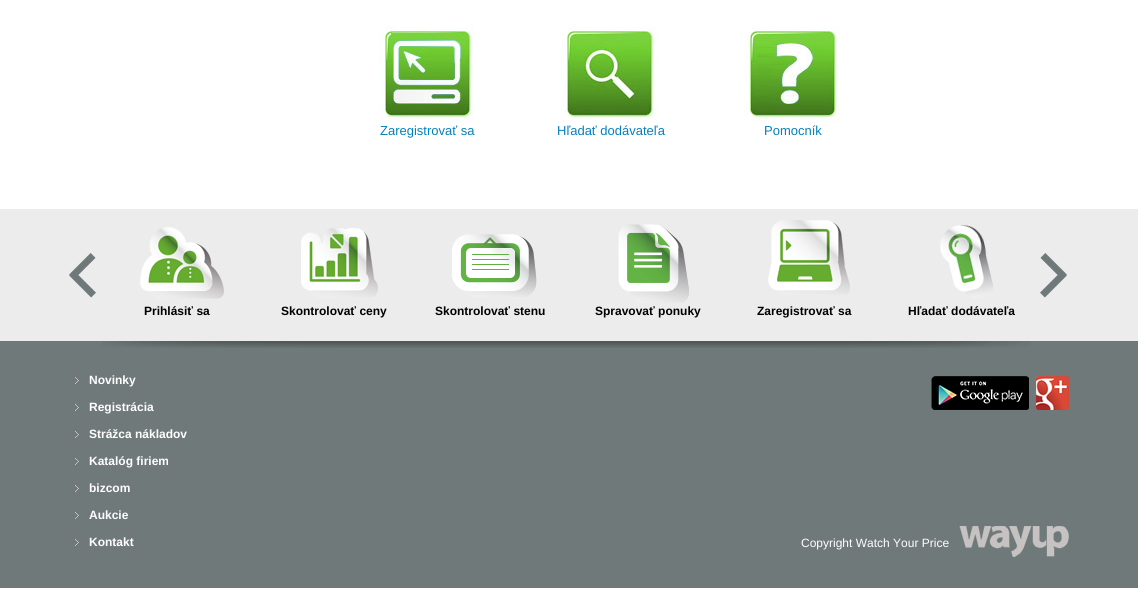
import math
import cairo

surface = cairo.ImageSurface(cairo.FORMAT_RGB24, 1138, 602)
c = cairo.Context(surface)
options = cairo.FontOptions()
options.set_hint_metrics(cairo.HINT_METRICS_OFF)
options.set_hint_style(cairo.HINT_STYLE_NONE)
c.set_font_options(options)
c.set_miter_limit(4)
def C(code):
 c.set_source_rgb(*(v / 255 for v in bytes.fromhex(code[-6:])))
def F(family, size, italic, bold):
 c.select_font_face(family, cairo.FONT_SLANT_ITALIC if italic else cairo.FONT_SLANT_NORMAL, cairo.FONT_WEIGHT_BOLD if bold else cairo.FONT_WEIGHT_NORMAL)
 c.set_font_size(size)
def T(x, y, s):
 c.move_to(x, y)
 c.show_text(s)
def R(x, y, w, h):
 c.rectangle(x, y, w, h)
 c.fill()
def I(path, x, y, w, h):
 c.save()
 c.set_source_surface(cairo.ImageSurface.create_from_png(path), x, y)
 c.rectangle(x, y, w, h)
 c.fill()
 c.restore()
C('ffffff')
c.paint()
I('1.png',379,26,96,96)
F('Liberation Sans',13,0,0)
C('0580ba')
T(380,135,'Zaregistrovať sa')
I('2.png',561,26,96,96)
T(557,135,'Hľadať dodávateľa')
I('3.png',744,26,96,96)
T(764,135,'Pomocník')
C('ececec')
R(0,209,1138,132)
I('4.png',69,253,27,45)
I('5.png',1040,253,27,45)
I('6.png',140,227,84,72)
F('Liberation Sans',12,0,1)
C('000000')
T(144,315,'Prihlásiť sa')
I('7.png',301,228,77,70)
T(281,315,'Skontrolovať ceny')
I('8.png',452,234,85,63)
T(435,315,'Skontrolovať stenu')
I('9.png',618,224,71,79)
T(595,315,'Spravovať ponuky')
I('10.png',768,220,82,75)
T(757,315,'Zaregistrovať sa')
I('11.png',940,224,53,74)
T(908,315,'Hľadať dodávateľa')
C('6f7979')
R(0,341,1138,247)
I('12.png',101,341,930,7)
I('13.png',959,526,110,31)
I('14.png',75,377,4,7)
C('fefefe')
T(89,384,'Novinky')
I('14.png',75,404,4,7)
T(89,411,'Registrácia')
I('14.png',75,431,4,7)
T(89,438,'Strážca nákladov')
I('14.png',75,458,4,7)
T(89,465,'Katalóg firiem')
I('14.png',75,485,4,7)
T(89,492,'bizcom')
I('14.png',75,512,4,7)
T(89,519,'Aukcie')
I('14.png',75,539,4,7)
T(89,546,'Kontakt')
I('15.png',931,376,98,34)
I('16.png',1036,376,33,34)
F('Liberation Sans',12,0,0)
T(801,547,'Copyright Watch Your Price')
surface.write_to_png('o.png')
